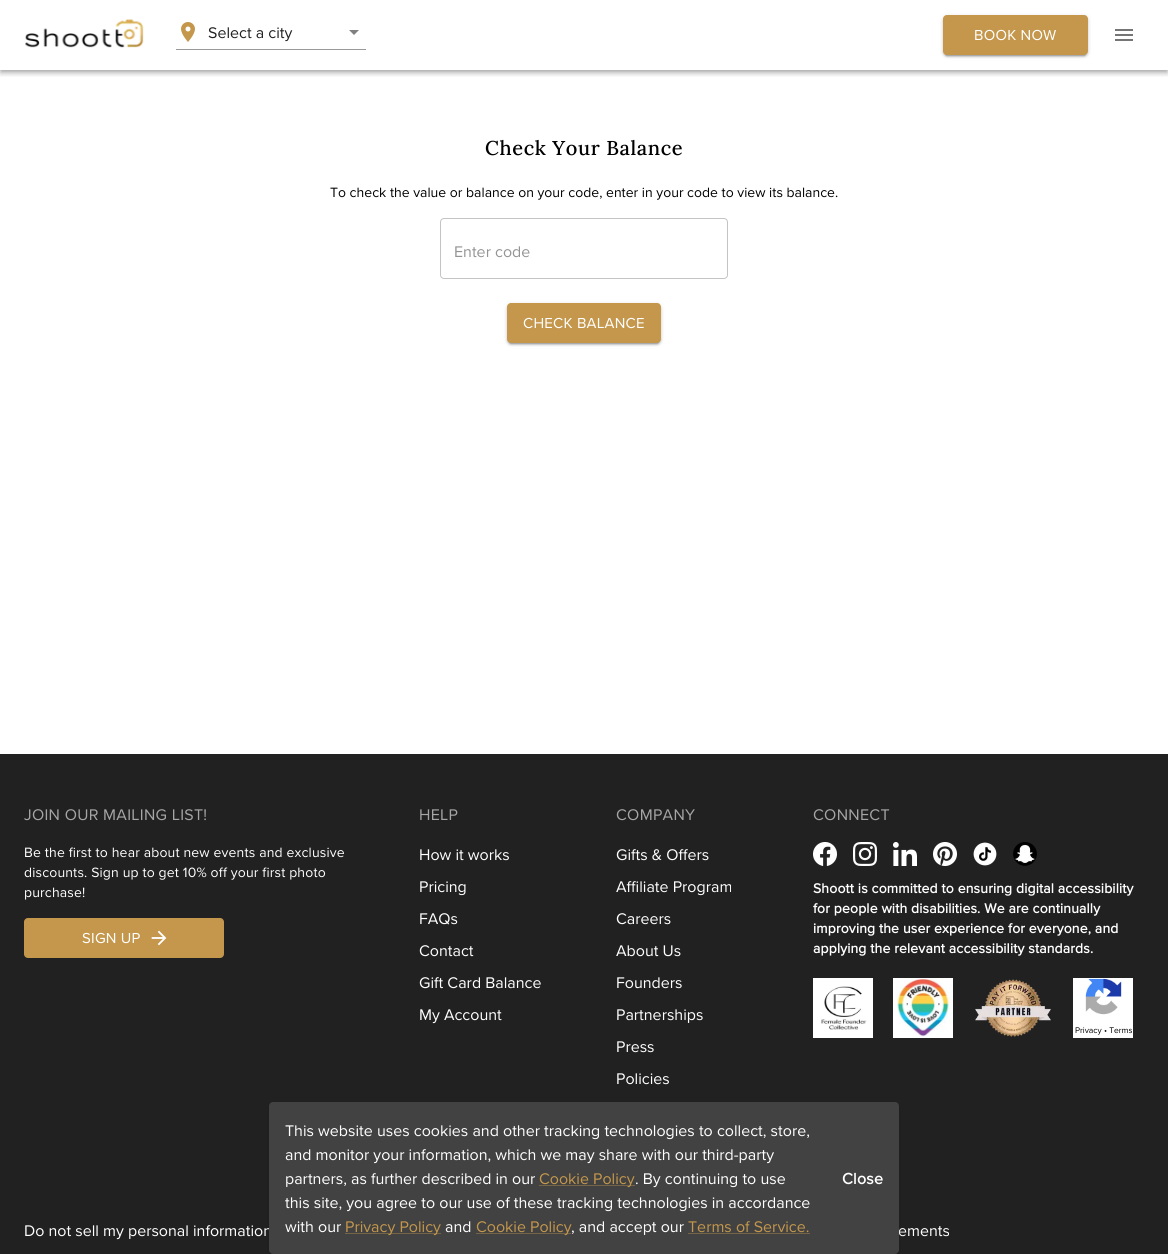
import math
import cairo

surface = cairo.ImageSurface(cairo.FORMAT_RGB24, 1168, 1254)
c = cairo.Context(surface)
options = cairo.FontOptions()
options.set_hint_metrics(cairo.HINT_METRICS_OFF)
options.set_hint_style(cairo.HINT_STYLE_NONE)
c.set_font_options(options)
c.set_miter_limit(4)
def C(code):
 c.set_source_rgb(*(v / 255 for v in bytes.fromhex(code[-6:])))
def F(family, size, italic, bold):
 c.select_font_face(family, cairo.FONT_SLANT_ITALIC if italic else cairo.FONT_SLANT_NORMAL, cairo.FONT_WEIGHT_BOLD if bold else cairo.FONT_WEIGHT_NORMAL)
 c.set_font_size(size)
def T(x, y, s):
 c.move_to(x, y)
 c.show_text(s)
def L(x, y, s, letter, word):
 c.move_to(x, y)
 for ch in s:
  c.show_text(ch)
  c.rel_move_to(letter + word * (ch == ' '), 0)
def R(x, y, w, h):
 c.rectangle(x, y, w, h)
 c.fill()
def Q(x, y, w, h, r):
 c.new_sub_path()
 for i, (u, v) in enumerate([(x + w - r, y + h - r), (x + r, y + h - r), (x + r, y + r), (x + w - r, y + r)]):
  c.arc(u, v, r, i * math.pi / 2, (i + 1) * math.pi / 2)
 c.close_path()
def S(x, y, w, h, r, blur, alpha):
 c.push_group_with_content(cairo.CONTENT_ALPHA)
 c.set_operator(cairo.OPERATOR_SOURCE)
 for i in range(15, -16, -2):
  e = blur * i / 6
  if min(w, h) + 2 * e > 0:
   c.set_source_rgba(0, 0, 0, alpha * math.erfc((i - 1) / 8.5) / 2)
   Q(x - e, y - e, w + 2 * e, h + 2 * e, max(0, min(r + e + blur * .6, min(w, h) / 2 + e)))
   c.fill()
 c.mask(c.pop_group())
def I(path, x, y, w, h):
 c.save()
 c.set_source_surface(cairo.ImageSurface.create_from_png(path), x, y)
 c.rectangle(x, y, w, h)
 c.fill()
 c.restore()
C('ffffff')
c.paint()
c.save()
c.rectangle(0,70,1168,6)
c.clip()
C('000000')
S(0,1,1168,70,0,5,.12)
c.restore()
c.save()
c.rectangle(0,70,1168,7)
c.clip()
C('000000')
S(0,4,1168,70,0,2.5,.14)
c.restore()
c.save()
c.rectangle(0,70,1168,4)
c.clip()
C('000000')
S(1,3,1166,68,0,2,.2)
c.restore()
I('1.png',25,19,119,29)
I('2.png',181,22,14,20)
F('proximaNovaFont',16,0,0)
C('212121')
T(208,38,'Select a city')
C('808080')
c.new_path()
c.move_to(349,30)
c.line_to(354,35)
c.line_to(359,30)
c.close_path()
c.fill()
C('999999')
R(176,49,190,1)
C('000000')
S(943,16,145,40,4,2.5,.12)
S(943,17,145,40,4,1,.14)
S(945,20,141,36,2,.5,.2)
C('c4974c')
Q(943,15,145,40,4)
c.fill()
F('proximaNovaFont',15,0,0)
C('ffffff')
L(974,40,'BOOK NOW',.25,0)
I('3.png',1115,29,18,12)
F('Lora Medium',20,0,0)
C('000000')
L(485,155,'Check Your Balance',.6,0)
F('proximaNovaFont',14,0,0)
T(330,197,'To check the value or balance on your code, enter in your code to view its balance.')
Q(440.5,218.5,287,60,3.5)
C('c4c4c4')
c.set_line_width(1)
c.stroke()
F('proximaNovaFont',16,0,0)
C('949494')
T(454,257,'Enter code')
C('000000')
S(507,304,154,40,4,2.5,.12)
S(507,305,154,40,4,1,.14)
S(509,308,150,36,2,.5,.2)
C('c4974c')
Q(507,303,154,40,4)
c.fill()
F('proximaNovaFont',15,0,0)
C('ffffff')
L(523,328,'CHECK BALANCE',.25,0)
C('212121')
R(0,754,1168,500)
F('proximaNovaFont',16,0,0)
C('a6a6a6')
L(24,820,'JOIN OUR MAILING LIST!',.3,0)
F('proximaNovaFont',14,0,0)
C('ffffff')
L(24,857,'Be the first to hear about new events and exclusive',.15,0)
L(24,877,'discounts. Sign up to get 10% off your first photo',.15,0)
L(24,897,'purchase!',.15,0)
C('c4974c')
Q(24,918,200,40,4)
c.fill()
F('proximaNovaFont',15,0,0)
C('ffffff')
L(82,943,'SIGN UP',.25,0)
I('4.png',151,930,16,16)
F('proximaNovaFont',16,0,0)
C('a6a6a6')
L(419,820,'HELP',.3,0)
C('ffffff')
T(419,860,'How it works')
T(419,892,'Pricing')
T(419,924,'FAQs')
T(419,956,'Contact')
T(419,988,'Gift Card Balance')
T(419,1020,'My Account')
C('a6a6a6')
L(616,820,'COMPANY',.3,0)
C('ffffff')
T(616,860,'Gifts & Offers')
T(616,892,'Affiliate Program')
T(616,924,'Careers')
T(616,956,'About Us')
T(616,988,'Founders')
T(616,1020,'Partnerships')
T(616,1052,'Press')
T(616,1084,'Policies')
C('a6a6a6')
L(813,820,'CONNECT',.3,0)
I('5.png',813,842,24,24)
I('6.png',853,842,24,24)
I('7.png',893,842,24,24)
I('8.png',933,842,24,24)
I('9.png',973,842,24,24)
I('10.png',1013,842,24,24)
F('proximaNovaFont',14,0,1)
C('ffffff')
L(813,893,'Shoott is committed to ensuring digital accessibility',.15,0)
L(813,913,'for people with disabilities. We are continually',.15,0)
L(813,933,'improving the user experience for everyone, and',.15,0)
L(813,953,'applying the relevant accessibility standards.',.15,0)
I('11.png',813,978,60,60)
I('12.png',893,978,60,60)
I('13.png',975,979,76,58)
R(1073,978,60,60)
I('14.png',1085,978,37,37)
F('proximaNovaFont',8.5,0,0)
C('000000')
T(1075,1033,'Privacy • Terms')
F('proximaNovaFont',16,0,0)
C('ffffff')
T(24,1236,'Do not sell my personal information')
T(898,1236,'ements')
C('000000')
S(269,1103,630,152,4,1.5,.12)
S(269,1103,630,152,4,.5,.14)
S(270,1105,628,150,3,.5,.2)
C('424242')
Q(269,1102,630,152,4)
c.fill()
C('ffffff')
T(285,1136,'This website uses cookies and other tracking technologies to collect, store,')
T(285,1160,'and monitor your information, which we may share with our third-party')
T(285,1184,'partners, as further described in our')
C('766446')
R(539,1185,96,1)
C('c4974c')
T(539,1184,'Cookie Policy')
C('ffffff')
T(635,1184,'. By continuing to use')
T(285,1208,'this site, you agree to our use of these tracking technologies in accordance')
T(285,1232,'with our')
C('766446')
R(345,1233,96,1)
C('c4974c')
T(345,1232,'Privacy Policy')
C('ffffff')
T(445,1232,'and')
C('766446')
R(476,1233,95,1)
C('c4974c')
T(476,1232,'Cookie Policy')
C('ffffff')
T(571,1232,', and accept our')
C('c4974c')
T(688,1232,'Terms of Service.')
C('766446')
R(688,1233,122,1)
F('proximaNovaFont',16,0,1)
C('ffffff')
L(842,1184,'Close',.25,0)
surface.write_to_png('o.png')
